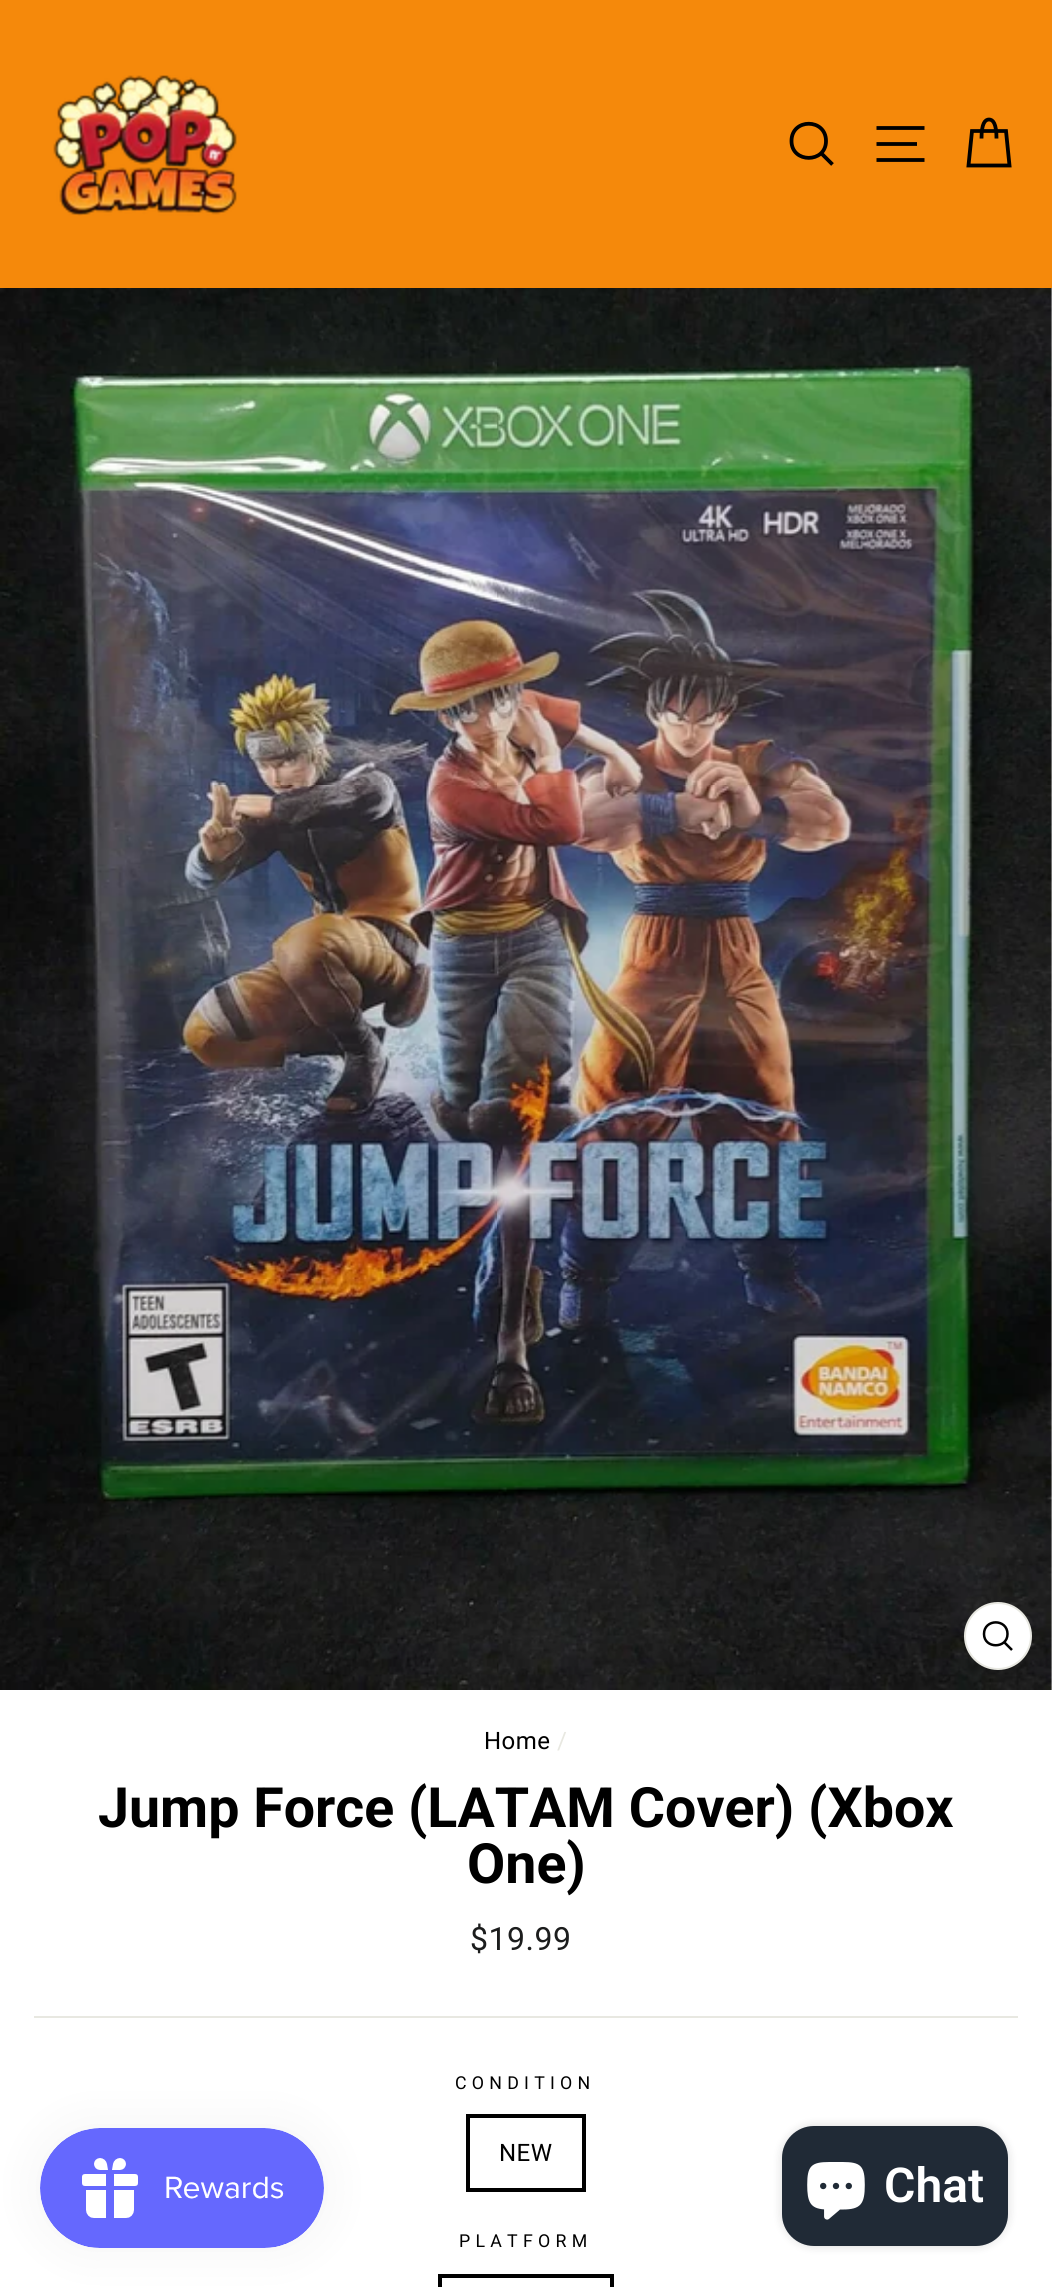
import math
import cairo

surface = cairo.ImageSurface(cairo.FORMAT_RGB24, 1052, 2287)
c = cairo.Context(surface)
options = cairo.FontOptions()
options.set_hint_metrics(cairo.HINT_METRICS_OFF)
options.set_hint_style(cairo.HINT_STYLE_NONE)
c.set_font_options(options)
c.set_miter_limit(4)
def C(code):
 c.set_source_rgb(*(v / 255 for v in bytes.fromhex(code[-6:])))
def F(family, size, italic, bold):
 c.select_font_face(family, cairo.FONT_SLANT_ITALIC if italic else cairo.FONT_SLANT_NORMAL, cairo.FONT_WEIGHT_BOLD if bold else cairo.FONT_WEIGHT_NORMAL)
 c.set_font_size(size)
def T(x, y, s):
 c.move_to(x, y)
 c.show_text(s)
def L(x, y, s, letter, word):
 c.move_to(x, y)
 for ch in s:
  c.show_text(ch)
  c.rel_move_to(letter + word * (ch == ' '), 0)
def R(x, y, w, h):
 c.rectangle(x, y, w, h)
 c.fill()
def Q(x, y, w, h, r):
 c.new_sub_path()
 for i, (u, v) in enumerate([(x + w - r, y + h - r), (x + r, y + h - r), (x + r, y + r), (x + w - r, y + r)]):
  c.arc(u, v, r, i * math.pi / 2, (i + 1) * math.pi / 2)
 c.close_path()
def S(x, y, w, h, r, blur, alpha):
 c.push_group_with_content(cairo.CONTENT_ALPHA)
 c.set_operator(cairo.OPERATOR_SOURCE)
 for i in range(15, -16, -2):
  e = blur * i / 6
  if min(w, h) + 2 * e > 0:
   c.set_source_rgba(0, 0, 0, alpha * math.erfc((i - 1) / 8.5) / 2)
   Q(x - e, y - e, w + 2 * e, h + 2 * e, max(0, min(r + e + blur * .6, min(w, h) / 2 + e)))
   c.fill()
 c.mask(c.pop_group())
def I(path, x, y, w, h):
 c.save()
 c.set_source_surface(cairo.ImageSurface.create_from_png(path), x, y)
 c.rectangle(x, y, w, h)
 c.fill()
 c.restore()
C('ffffff')
c.paint()
C('f5890b')
R(0,0,1052,288)
I('1.png',53,75,184,141)
c.new_path()
c.move_to(826,141)
c.curve_to(826,163.5,791.5,163.5,791.5,141)
c.curve_to(791.5,118,826,118,826,141)
c.close_path()
c.move_to(832.5,164.5)
c.line_to(821.5,153.5)
C('000000')
c.set_line_width(3.8)
c.stroke()
c.new_path()
c.move_to(876.5,128)
c.line_to(924.5,128)
c.move_to(876.5,144)
c.line_to(917,144)
c.move_to(876.5,160)
c.line_to(924.5,160)
c.stroke()
c.new_path()
c.move_to(981.5,138.5)
c.curve_to(981.5,123.5,985,119.5,989,119.5)
c.curve_to(993,119.5,996.5,123.5,996.5,138.5)
c.move_to(972,131)
c.line_to(1006,131)
c.line_to(1009.5,165.5)
c.line_to(968.5,165.5)
c.close_path()
c.stroke()
I('2.png',0,288,1052,1402)
C('ffffff')
c.arc(998,1636,33,0,2 * math.pi)
c.fill_preserve()
C('e8e8e1')
c.set_line_width(2)
c.stroke()
c.new_path()
c.move_to(1007.5,1634)
c.curve_to(1007.5,1649,984,1649,984,1634)
c.curve_to(984,1618.5,1007.5,1618.5,1007.5,1634)
c.close_path()
c.move_to(1012,1650)
c.line_to(1004,1642)
C('000000')
c.set_line_width(2.5)
c.stroke()
F('Roboto',24,0,0)
L(484,1749,'Home',.5,0)
C('e8e8e1')
L(557,1749,'/',.5,0)
F('Roboto',55.5,0,1)
C('000000')
T(98,1827,'Jump Force (LATAM Cover) (Xbox')
T(467,1883,'One)')
F('Roboto',32,0,0)
C('1c1d1d')
L(470,1950,'$19.99',.5,0)
C('e8e8e1')
R(34,2016,984,2)
F('Roboto',17.75,0,0)
C('000000')
L(455,2089,'CONDITION',5.25,0)
c.rectangle(468,2116,116,74)
c.set_line_width(4)
c.stroke()
F('Roboto',24,0,0)
L(499,2161,'NEW',.5,0)
F('Roboto',17.75,0,0)
L(459,2247,'PLATFORM',5.25,0)
c.rectangle(440,2276,172,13)
c.stroke()
C('000000')
S(40,2128,284,120,60,25,.05)
I('3.png',40,2128,284,120)
S(782,2126,226,120,32,5,.15)
C('202a36')
Q(782,2126,226,120,32)
c.fill()
I('4.png',807,2162,58,58)
F('Roboto SemiBold',48,0,0)
C('ffffff')
T(884,2202,'Chat')
surface.write_to_png('o.png')
